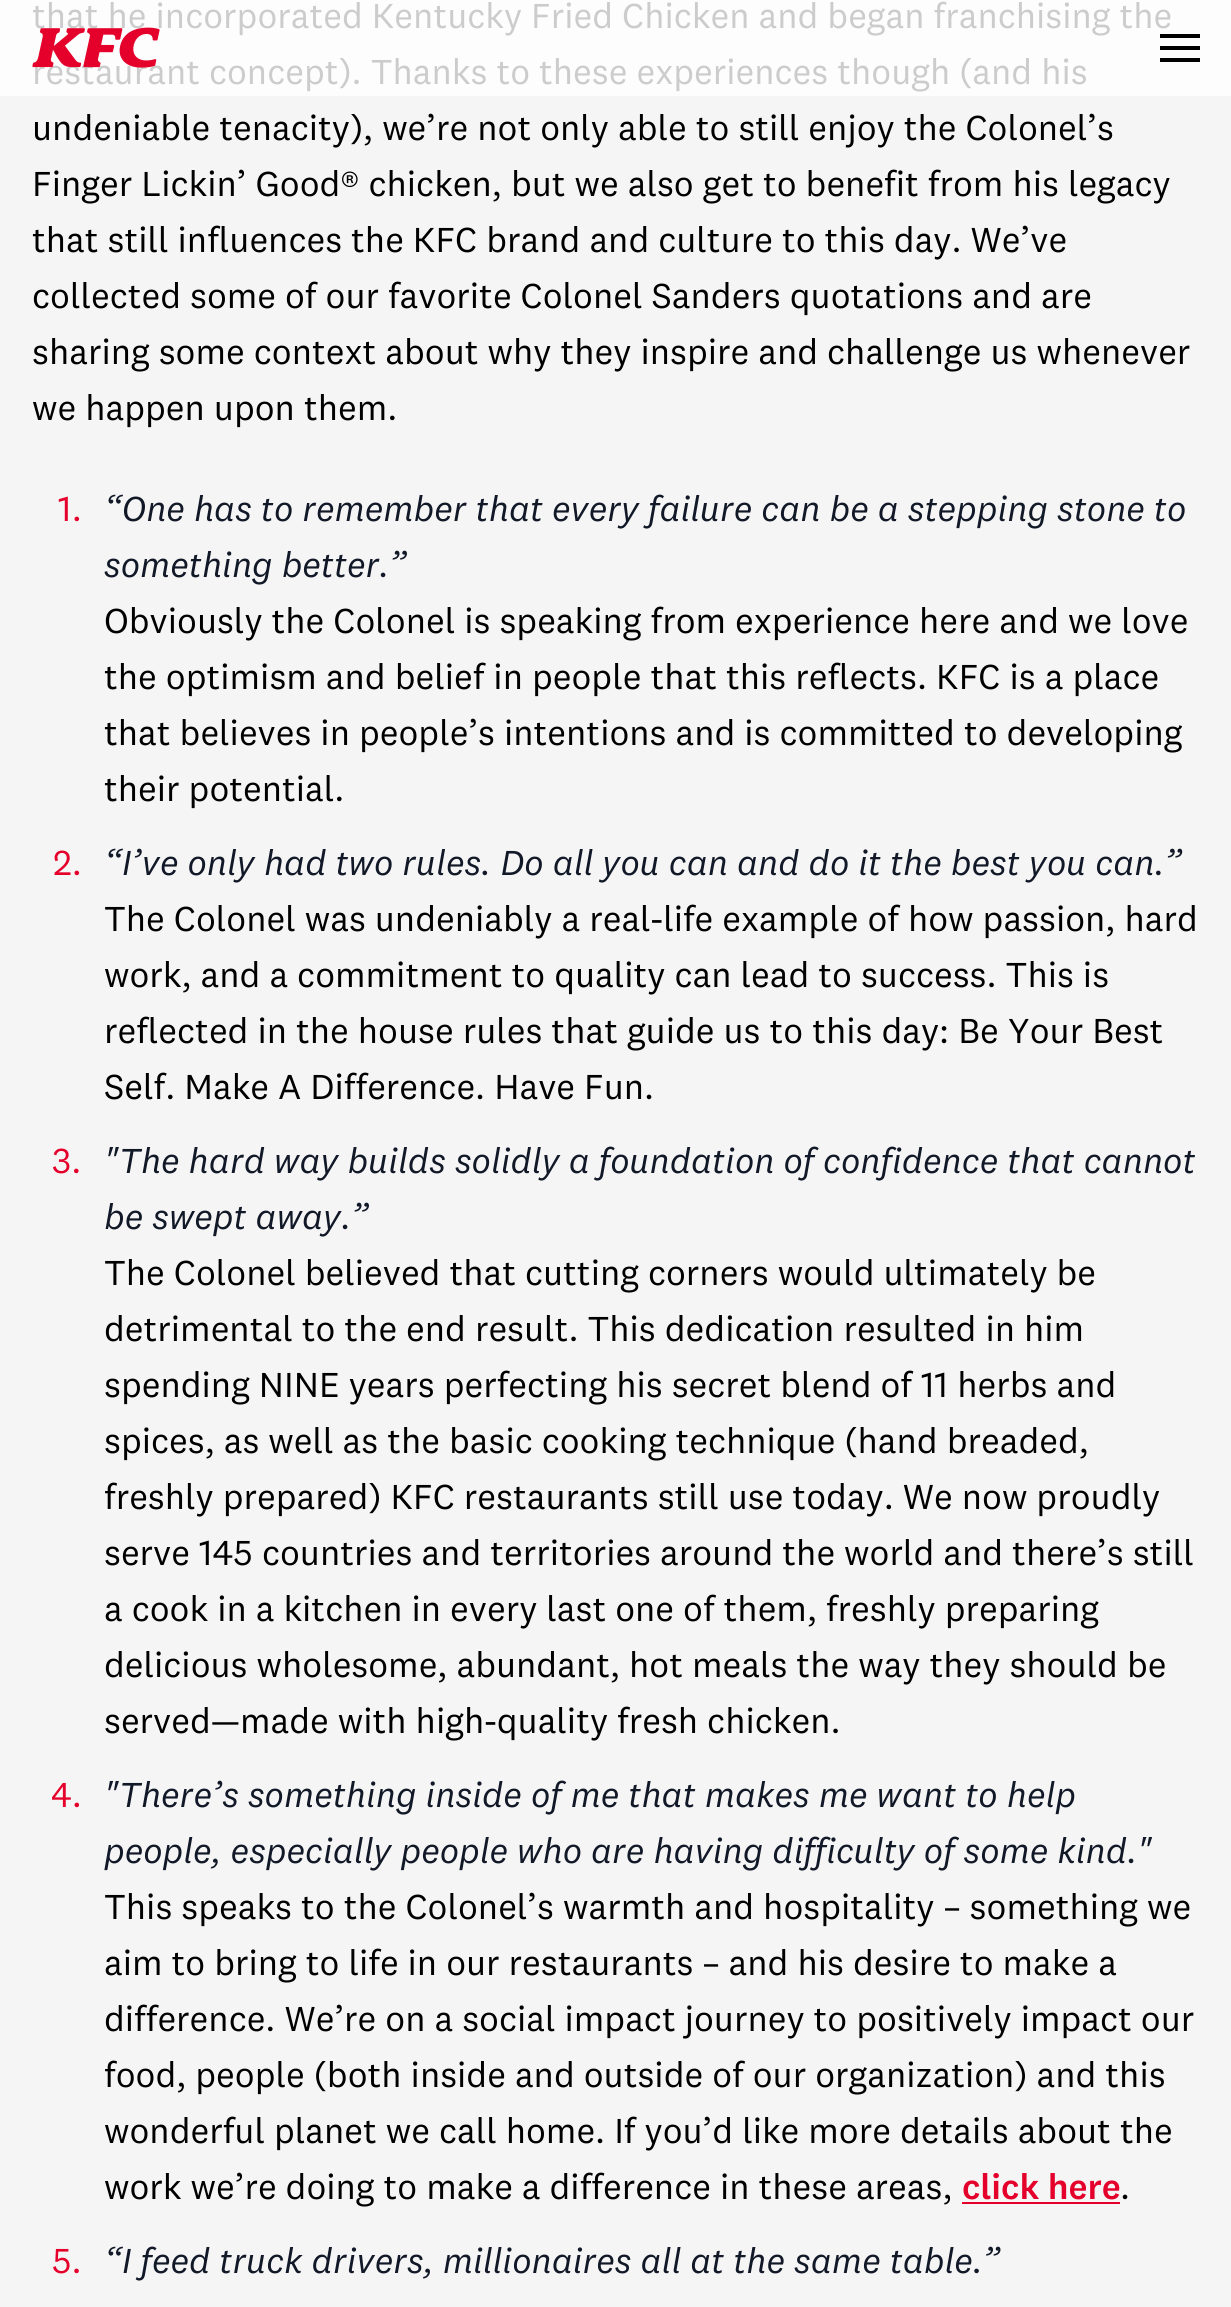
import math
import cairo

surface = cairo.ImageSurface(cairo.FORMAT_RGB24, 1231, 2307)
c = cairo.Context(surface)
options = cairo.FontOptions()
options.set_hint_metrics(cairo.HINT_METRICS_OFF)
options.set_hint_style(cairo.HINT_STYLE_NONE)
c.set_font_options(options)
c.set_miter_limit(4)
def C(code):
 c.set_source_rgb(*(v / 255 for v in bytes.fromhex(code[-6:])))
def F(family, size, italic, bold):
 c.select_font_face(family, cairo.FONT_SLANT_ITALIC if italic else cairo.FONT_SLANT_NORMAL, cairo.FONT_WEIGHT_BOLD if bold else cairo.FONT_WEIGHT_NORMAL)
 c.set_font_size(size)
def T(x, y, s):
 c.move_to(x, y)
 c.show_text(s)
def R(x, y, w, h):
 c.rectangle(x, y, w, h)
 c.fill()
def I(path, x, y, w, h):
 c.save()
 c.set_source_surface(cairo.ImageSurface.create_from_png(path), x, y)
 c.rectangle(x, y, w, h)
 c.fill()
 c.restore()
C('f6f5f5')
c.paint()
C('fdfdfd')
R(0,0,1231,96)
F('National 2',36,0,0)
C('cccccc')
T(32,28,'that he incorporated Kentucky Fried Chicken and began franchising the')
T(32,84,'restaurant concept). Thanks to these experiences though (and his')
C('000000')
T(32,140,'undeniable tenacity), we’re not only able to still enjoy the Colonel’s')
T(32,196,'Finger Lickin’ Good® chicken, but we also get to benefit from his legacy')
T(32,252,'that still influences the KFC brand and culture to this day. We’ve')
T(32,308,'collected some of our favorite Colonel Sanders quotations and are')
T(32,364,'sharing some context about why they inspire and challenge us whenever')
T(32,420,'we happen upon them.')
C('e4002b')
T(58,521,'1.')
F('National 2',36,1,0)
C('111827')
T(104,521,'“One has to remember that every failure can be a stepping stone to')
T(104,577,'something better.”')
F('National 2',36,0,0)
C('000000')
T(104,633,'Obviously the Colonel is speaking from experience here and we love')
T(104,689,'the optimism and belief in people that this reflects. KFC is a place')
T(104,745,'that believes in people’s intentions and is committed to developing')
T(104,801,'their potential.')
C('e4002b')
T(53,875,'2.')
F('National 2',36,1,0)
C('111827')
T(104,875,'“I’ve only had two rules. Do all you can and do it the best you can.”')
F('National 2',36,0,0)
C('000000')
T(104,931,'The Colonel was undeniably a real-life example of how passion, hard')
T(104,987,'work, and a commitment to quality can lead to success. This is')
T(104,1043,'reflected in the house rules that guide us to this day: Be Your Best')
T(104,1099,'Self. Make A Difference. Have Fun.')
C('e4002b')
T(52,1173,'3.')
F('National 2',36,1,0)
C('111827')
T(104,1173,'"The hard way builds solidly a foundation of confidence that cannot')
T(104,1229,'be swept away.”')
F('National 2',36,0,0)
C('000000')
T(104,1285,'The Colonel believed that cutting corners would ultimately be')
T(104,1341,'detrimental to the end result. This dedication resulted in him')
T(104,1397,'spending NINE years perfecting his secret blend of 11 herbs and')
T(104,1453,'spices, as well as the basic cooking technique (hand breaded,')
T(104,1509,'freshly prepared) KFC restaurants still use today. We now proudly')
T(104,1565,'serve 145 countries and territories around the world and there’s still')
T(104,1621,'a cook in a kitchen in every last one of them, freshly preparing')
T(104,1677,'delicious wholesome, abundant, hot meals the way they should be')
T(104,1733,'served—made with high-quality fresh chicken.')
C('e4002b')
T(51,1807,'4.')
F('National 2',36,1,0)
C('111827')
T(104,1807,'"There’s something inside of me that makes me want to help')
T(104,1863,'people, especially people who are having difficulty of some kind."')
F('National 2',36,0,0)
C('000000')
T(104,1919,'This speaks to the Colonel’s warmth and hospitality – something we')
T(104,1975,'aim to bring to life in our restaurants – and his desire to make a')
T(104,2031,'difference. We’re on a social impact journey to positively impact our')
T(104,2087,'food, people (both inside and outside of our organization) and this')
T(104,2143,'wonderful planet we call home. If you’d like more details about the')
T(104,2199,'work we’re doing to make a difference in these areas,')
F('National 2 Medium',36,0,0)
C('e4002b')
T(962,2199,'click here')
R(962,2202,158,2)
F('National 2',36,0,0)
C('000000')
T(1120,2199,'.')
C('e4002b')
T(52,2273,'5.')
F('National 2',36,1,0)
C('111827')
T(104,2273,'“I feed truck drivers, millionaires all at the same table.”')
I('1.png',32,27,128,41)
C('000000')
R(1160,34,40,4)
R(1160,46,40,4)
R(1160,58,40,4)
surface.write_to_png('o.png')
